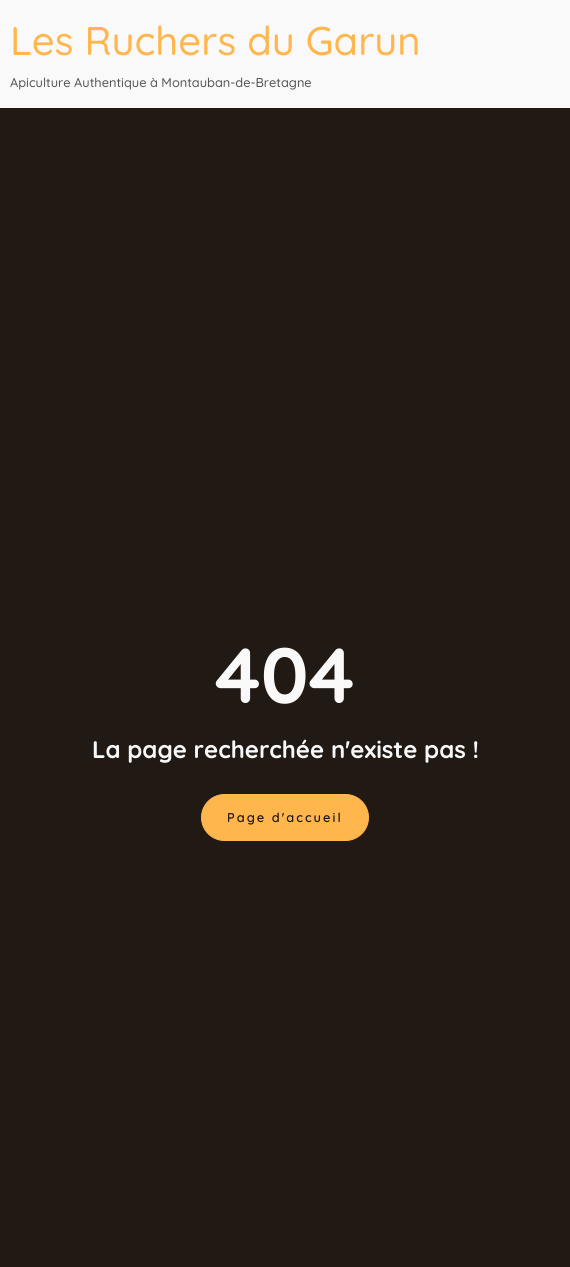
import math
import cairo

surface = cairo.ImageSurface(cairo.FORMAT_RGB24, 570, 1267)
c = cairo.Context(surface)
options = cairo.FontOptions()
options.set_hint_metrics(cairo.HINT_METRICS_OFF)
options.set_hint_style(cairo.HINT_STYLE_NONE)
c.set_font_options(options)
c.set_miter_limit(4)
def C(code):
 c.set_source_rgb(*(v / 255 for v in bytes.fromhex(code[-6:])))
def F(family, size, italic, bold):
 c.select_font_face(family, cairo.FONT_SLANT_ITALIC if italic else cairo.FONT_SLANT_NORMAL, cairo.FONT_WEIGHT_BOLD if bold else cairo.FONT_WEIGHT_NORMAL)
 c.set_font_size(size)
def T(x, y, s):
 c.move_to(x, y)
 c.show_text(s)
def L(x, y, s, letter, word):
 c.move_to(x, y)
 for ch in s:
  c.show_text(ch)
  c.rel_move_to(letter + word * (ch == ' '), 0)
def R(x, y, w, h):
 c.rectangle(x, y, w, h)
 c.fill()
def Q(x, y, w, h, r):
 c.new_sub_path()
 for i, (u, v) in enumerate([(x + w - r, y + h - r), (x + r, y + h - r), (x + r, y + r), (x + w - r, y + r)]):
  c.arc(u, v, r, i * math.pi / 2, (i + 1) * math.pi / 2)
 c.close_path()
C('f9f9fa')
c.paint()
F('Quicksand Medium',40,0,0)
C('ffb64c')
T(10,55,'Les Ruchers du Garun')
F('Quicksand Medium',12.8,0,0)
C('535353')
T(10,87,'Apiculture Authentique à Montauban-de-Bretagne')
C('201914')
R(0,108,570,1159)
F('Quicksand',78,0,1)
C('f9f9fa')
T(215,703,'404')
F('Quicksand',24,0,1)
T(92,758,'La page recherchée n\'existe pas !')
C('ffb64c')
Q(201.5,794.5,167,46,23)
c.fill_preserve()
c.set_line_width(1)
c.stroke()
F('Quicksand SemiBold',12.8,0,0)
C('201914')
L(227,822,'Page d\'accueil',2,0)
surface.write_to_png('o.png')
